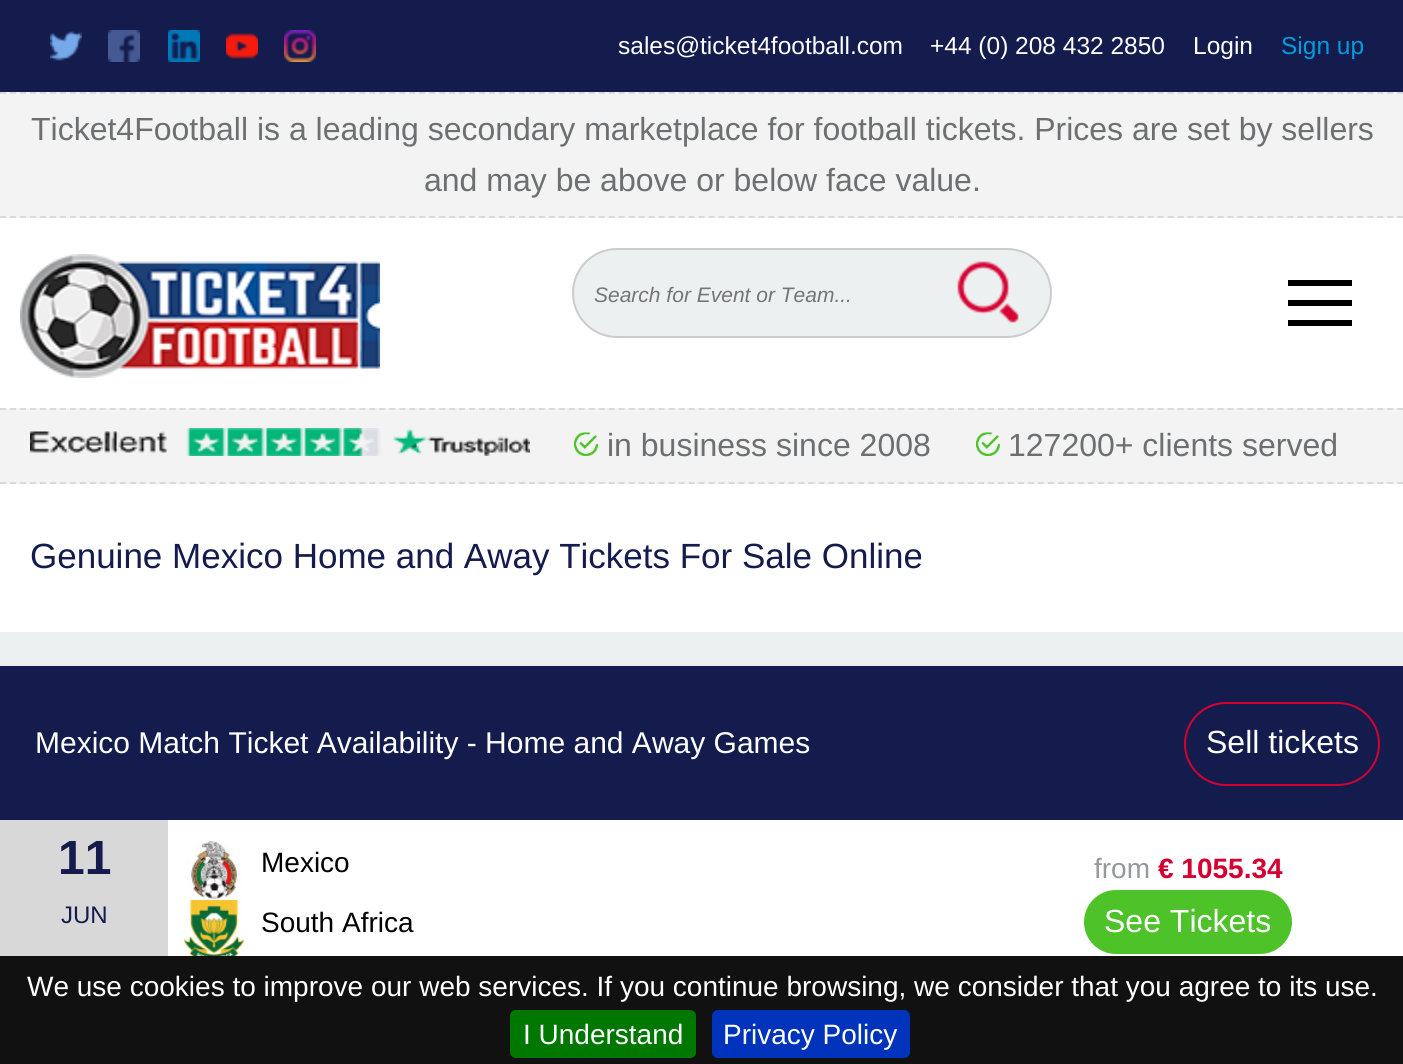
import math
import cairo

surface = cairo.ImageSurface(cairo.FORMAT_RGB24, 1403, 1064)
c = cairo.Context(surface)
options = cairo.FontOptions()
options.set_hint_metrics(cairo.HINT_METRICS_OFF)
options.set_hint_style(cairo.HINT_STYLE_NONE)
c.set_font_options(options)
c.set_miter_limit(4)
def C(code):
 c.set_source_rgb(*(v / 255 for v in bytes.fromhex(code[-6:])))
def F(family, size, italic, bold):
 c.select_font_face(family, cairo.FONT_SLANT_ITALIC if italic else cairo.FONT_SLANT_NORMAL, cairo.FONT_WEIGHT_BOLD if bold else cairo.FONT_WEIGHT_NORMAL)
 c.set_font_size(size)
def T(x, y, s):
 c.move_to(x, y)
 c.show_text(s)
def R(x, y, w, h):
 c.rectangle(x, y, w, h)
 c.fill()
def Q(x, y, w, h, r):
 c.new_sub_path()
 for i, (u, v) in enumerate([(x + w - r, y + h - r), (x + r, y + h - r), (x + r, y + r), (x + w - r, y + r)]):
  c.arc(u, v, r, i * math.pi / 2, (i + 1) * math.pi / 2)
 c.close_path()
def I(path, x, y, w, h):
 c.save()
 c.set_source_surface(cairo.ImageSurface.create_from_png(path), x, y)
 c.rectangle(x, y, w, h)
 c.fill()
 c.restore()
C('ecf0f1')
c.paint()
C('141b4d')
R(0,0,1403,92)
I('1.png',50,31,32,30)
I('2.png',108,30,32,32)
I('3.png',168,30,32,32)
I('4.png',226,33,32,26)
I('5.png',284,30,32,32)
F('Liberation Sans',24.5,0,0)
C('ffffff')
T(618,54,'sales@ticket4football.com')
T(930,54,'+44 (0) 208 432 2850')
T(1193,54,'Login')
C('009cde')
T(1281,54,'Sign up')
C('f3f3f3')
R(0,92,1403,126)
c.new_path()
c.move_to(0,93)
c.line_to(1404,93)
C('dadada')
c.set_dash([6,3.98])
c.stroke()
c.new_path()
c.move_to(0,217)
c.line_to(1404,217)
c.stroke()
F('Liberation Sans',32,0,0)
C('6d6f70')
T(31,140,'Ticket4Football is a leading secondary marketplace for football tickets. Prices are set by sellers')
T(424,191,'and may be above or below face value.')
C('ffffff')
R(0,218,1403,190)
I('6.png',20,254,360,124)
C('ecf0f1')
Q(573,249,478,88,44)
c.fill_preserve()
C('cccccc')
c.set_dash([])
c.stroke()
F('Liberation Sans',21,1,0)
C('757575')
T(594,302,'Search for Event or Team...')
I('7.png',957,261,62,62)
C('000000')
R(1288,280,64,6)
R(1288,300,64,6)
R(1288,320,64,6)
C('f3f3f3')
R(0,408,1403,76)
c.new_path()
c.move_to(0,409)
c.line_to(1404,409)
C('dadada')
c.set_dash([6,3.98])
c.stroke()
c.new_path()
c.move_to(0,483)
c.line_to(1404,483)
c.stroke()
I('8.png',30,428,500,28)
I('9.png',574,432,24,24)
F('Liberation Sans',32,0,0)
C('6d6f70')
T(607,456,'in business since 2008')
I('9.png',976,432,24,24)
T(1008,456,'127200+ clients served')
C('ffffff')
R(0,484,1403,148)
F('Liberation Sans',35,0,0)
C('141b4d')
T(30,568,'Genuine Mexico Home and Away Tickets For Sale Online')
C('ffffff')
R(168,820,1235,136)
C('141b4d')
R(0,666,1403,154)
F('Liberation Sans',30,0,0)
C('ffffff')
T(35,753,'Mexico Match Ticket Availability - Home and Away Games')
Q(1185,703,194,82,41)
C('d50032')
c.set_dash([])
c.stroke()
F('Liberation Sans',32,0,0)
C('ffffff')
T(1206,753,'Sell tickets')
C('d8d8d8')
R(0,820,168,136)
F('Liberation Sans',48,0,1)
C('141b4d')
T(58,874,'11')
F('Liberation Sans',24,0,0)
T(61,923,'JUN')
I('10.png',186,841,55,59)
F('Liberation Sans',28,0,0)
C('000000')
T(261,872,'Mexico')
I('11.png',184,900,60,56)
T(261,932,'South Africa')
C('95989a')
T(1094,878,'from')
F('Liberation Sans',28,0,1)
C('d50032')
T(1158,878,'€ 1055.34')
C('4dc229')
Q(1084,890,208,64,32)
c.fill()
F('Liberation Sans',32,0,0)
C('ffffff')
T(1104,932,'See Tickets')
C('111111')
R(0,956,1403,108)
F('Liberation Sans',28,0,0)
C('ffffff')
T(27,996,'We use cookies to improve our web services. If you continue browsing, we consider that you agree to its use.')
C('007700')
Q(510,1010,186,48,6)
c.fill()
C('ffffff')
T(523,1044,'I Understand')
C('0033bb')
Q(712,1010,198,48,6)
c.fill()
C('ffffff')
T(723,1044,'Privacy Policy')
surface.write_to_png('o.png')
